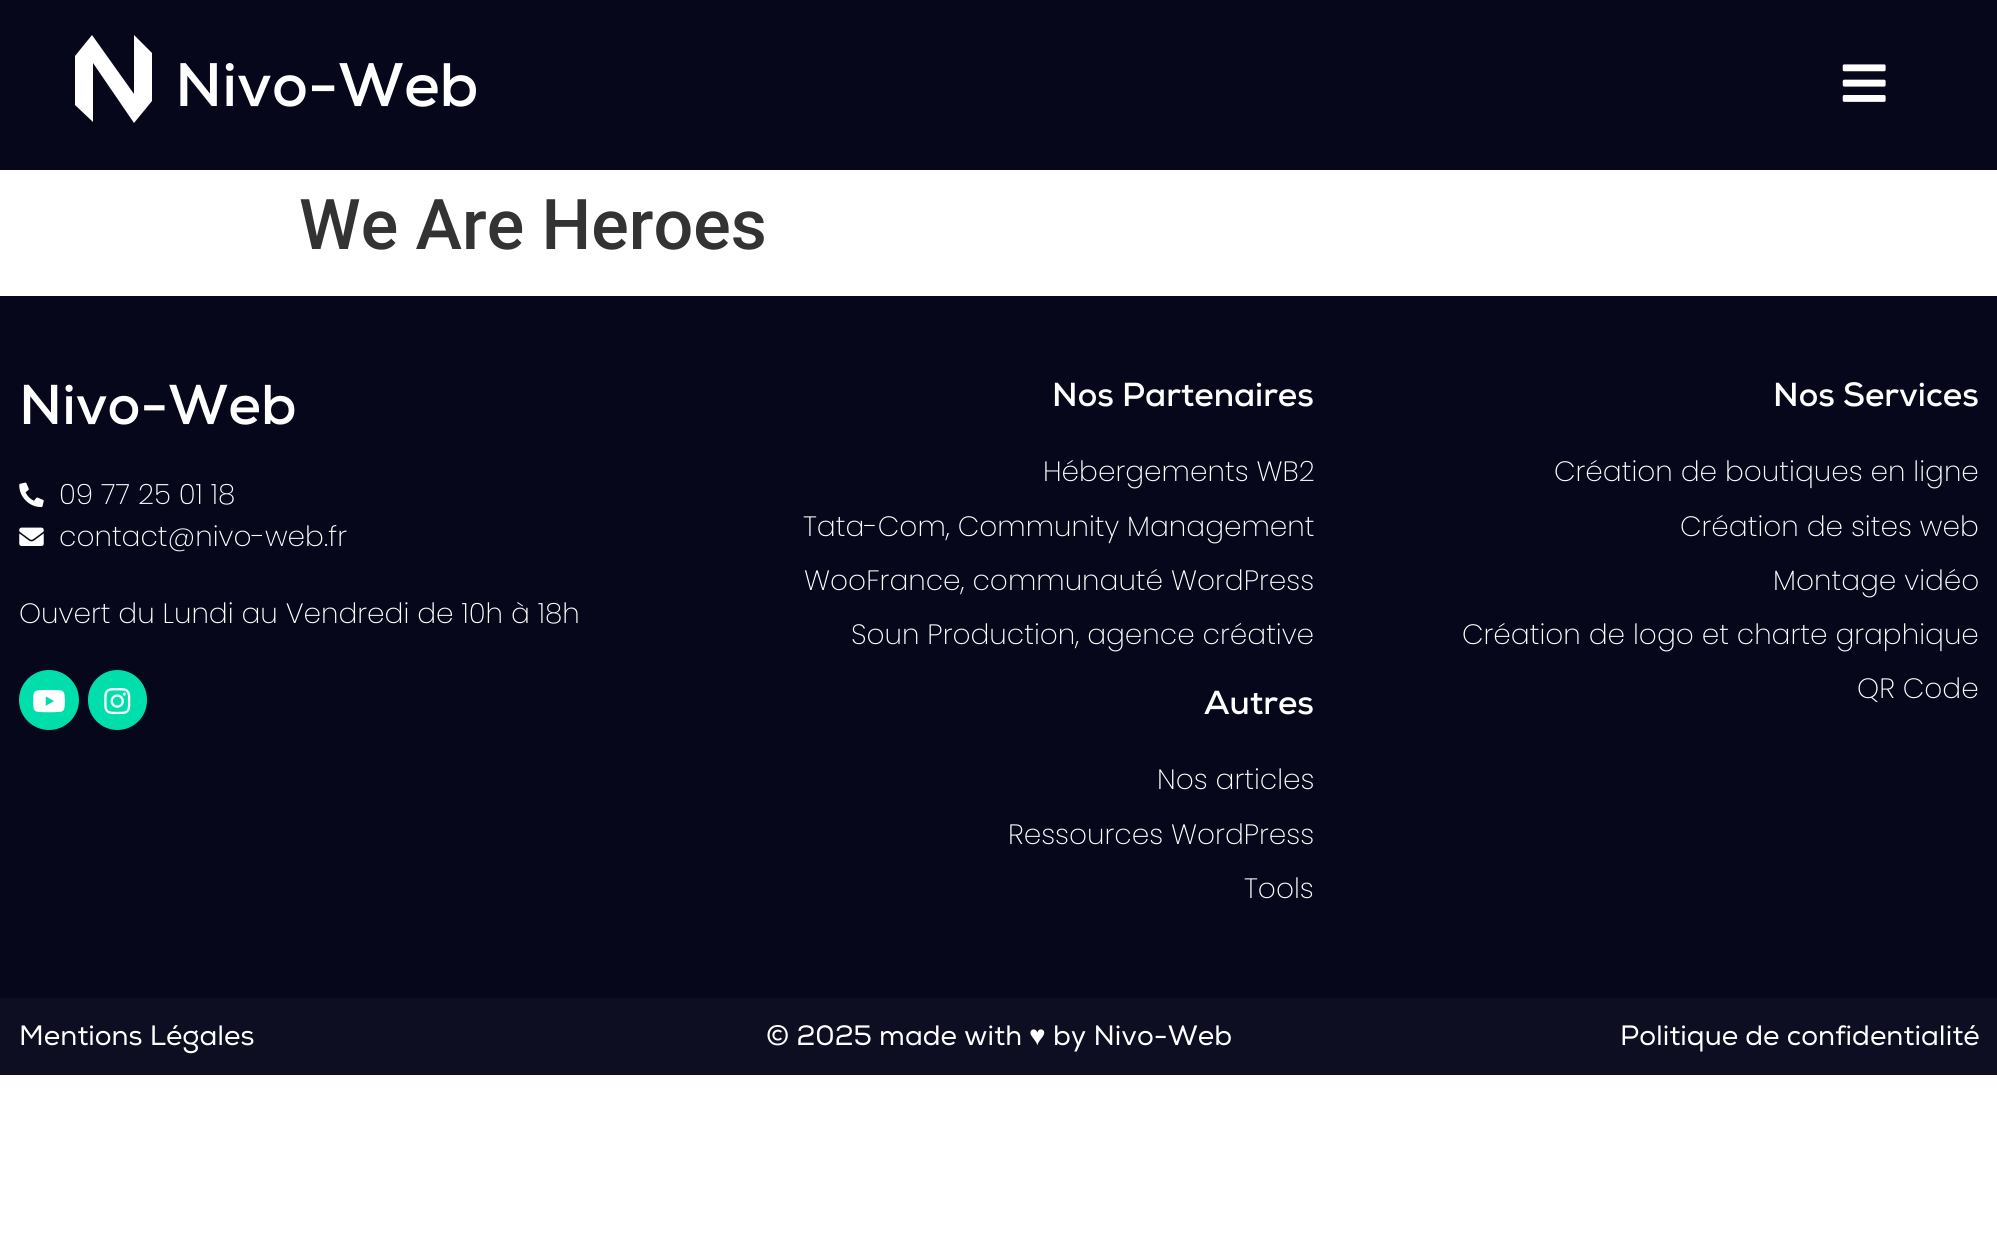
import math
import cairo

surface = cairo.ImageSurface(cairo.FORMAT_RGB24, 1997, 1258)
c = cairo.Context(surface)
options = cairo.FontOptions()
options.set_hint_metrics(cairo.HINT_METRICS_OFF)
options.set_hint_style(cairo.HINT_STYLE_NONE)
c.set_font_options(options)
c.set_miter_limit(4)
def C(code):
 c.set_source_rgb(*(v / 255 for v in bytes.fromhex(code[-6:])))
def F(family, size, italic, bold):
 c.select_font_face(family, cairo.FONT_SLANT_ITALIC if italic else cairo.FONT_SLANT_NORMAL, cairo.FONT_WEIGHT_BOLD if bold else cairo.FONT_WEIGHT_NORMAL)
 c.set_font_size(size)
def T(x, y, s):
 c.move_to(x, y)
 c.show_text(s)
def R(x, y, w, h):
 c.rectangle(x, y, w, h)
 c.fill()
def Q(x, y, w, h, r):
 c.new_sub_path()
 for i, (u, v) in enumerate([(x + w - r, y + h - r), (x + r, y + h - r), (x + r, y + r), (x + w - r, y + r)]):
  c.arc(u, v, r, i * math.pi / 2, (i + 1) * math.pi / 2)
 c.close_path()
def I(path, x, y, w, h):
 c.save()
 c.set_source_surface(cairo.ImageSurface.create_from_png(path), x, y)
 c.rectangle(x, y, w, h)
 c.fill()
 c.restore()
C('ffffff')
c.paint()
C('06071a')
R(0,0,1997,170)
C('ffffff')
c.new_path()
c.move_to(75,105)
c.line_to(75,56)
c.line_to(92,35)
c.line_to(134,94)
c.line_to(134,35)
c.line_to(152,53)
c.line_to(152,101)
c.line_to(134,123)
c.line_to(93,63)
c.line_to(93,122)
c.close_path()
c.fill()
F('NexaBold',61.25,0,1)
T(175,106,'Nivo-Web')
I('1.png',1842,64,44,38)
F('Roboto Medium',70,0,0)
C('333333')
T(299,249,'We Are Heroes')
C('06071a')
R(0,296,1997,702)
F('NexaBold',56,0,1)
C('ffffff')
T(19,424,'Nivo-Web')
I('2.png',19,482,25,26)
F('Poppins ExtraLight',28,0,0)
T(59,504,'09 77 25 01 18')
I('3.png',19,527,25,19)
T(59,546,'contact@nivo-web.fr')
T(19,623,'Ouvert du Lundi au Vendredi de 10h à 18h')
C('00deab')
c.new_path()
c.arc(49,700,30,0,2 * math.pi)
c.fill()
I('4.png',33,689,32,24)
Q(88,670,59,60,29.5)
c.fill()
I('5.png',104,688,27,27)
F('NexaBold',33.25,0,1)
C('ffffff')
T(1052,406,'Nos Partenaires')
F('Poppins ExtraLight',28,0,0)
T(1043,481,'Hébergements WB2')
T(803,536,'Tata-Com, Community Management')
T(804,590,'WooFrance, communauté WordPress')
T(851,644,'Soun Production, agence créative')
F('NexaBold',33.25,0,1)
T(1204,714,'Autres')
F('Poppins ExtraLight',28,0,0)
T(1157,789,'Nos articles')
T(1008,844,'Ressources WordPress')
T(1244,898,'Tools')
F('NexaBold',33.25,0,1)
T(1773,406,'Nos Services')
F('Poppins ExtraLight',28,0,0)
T(1554,481,'Création de boutiques en ligne')
T(1680,536,'Création de sites web')
T(1773,590,'Montage vidéo')
T(1462,644,'Création de logo et charte graphique')
T(1857,698,'QR Code')
C('0d0e22')
R(0,998,1997,77)
F('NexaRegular',28,0,0)
C('ffffff')
T(19,1045,'Mentions Légales')
T(766,1045,'© 2025 made with')
F('Liberation Sans',28,0,0)
T(1029,1045,'♥')
F('NexaRegular',28,0,0)
T(1053,1045,'by Nivo-Web')
T(1620,1045,'Politique de confidentialité')
surface.write_to_png('o.png')
